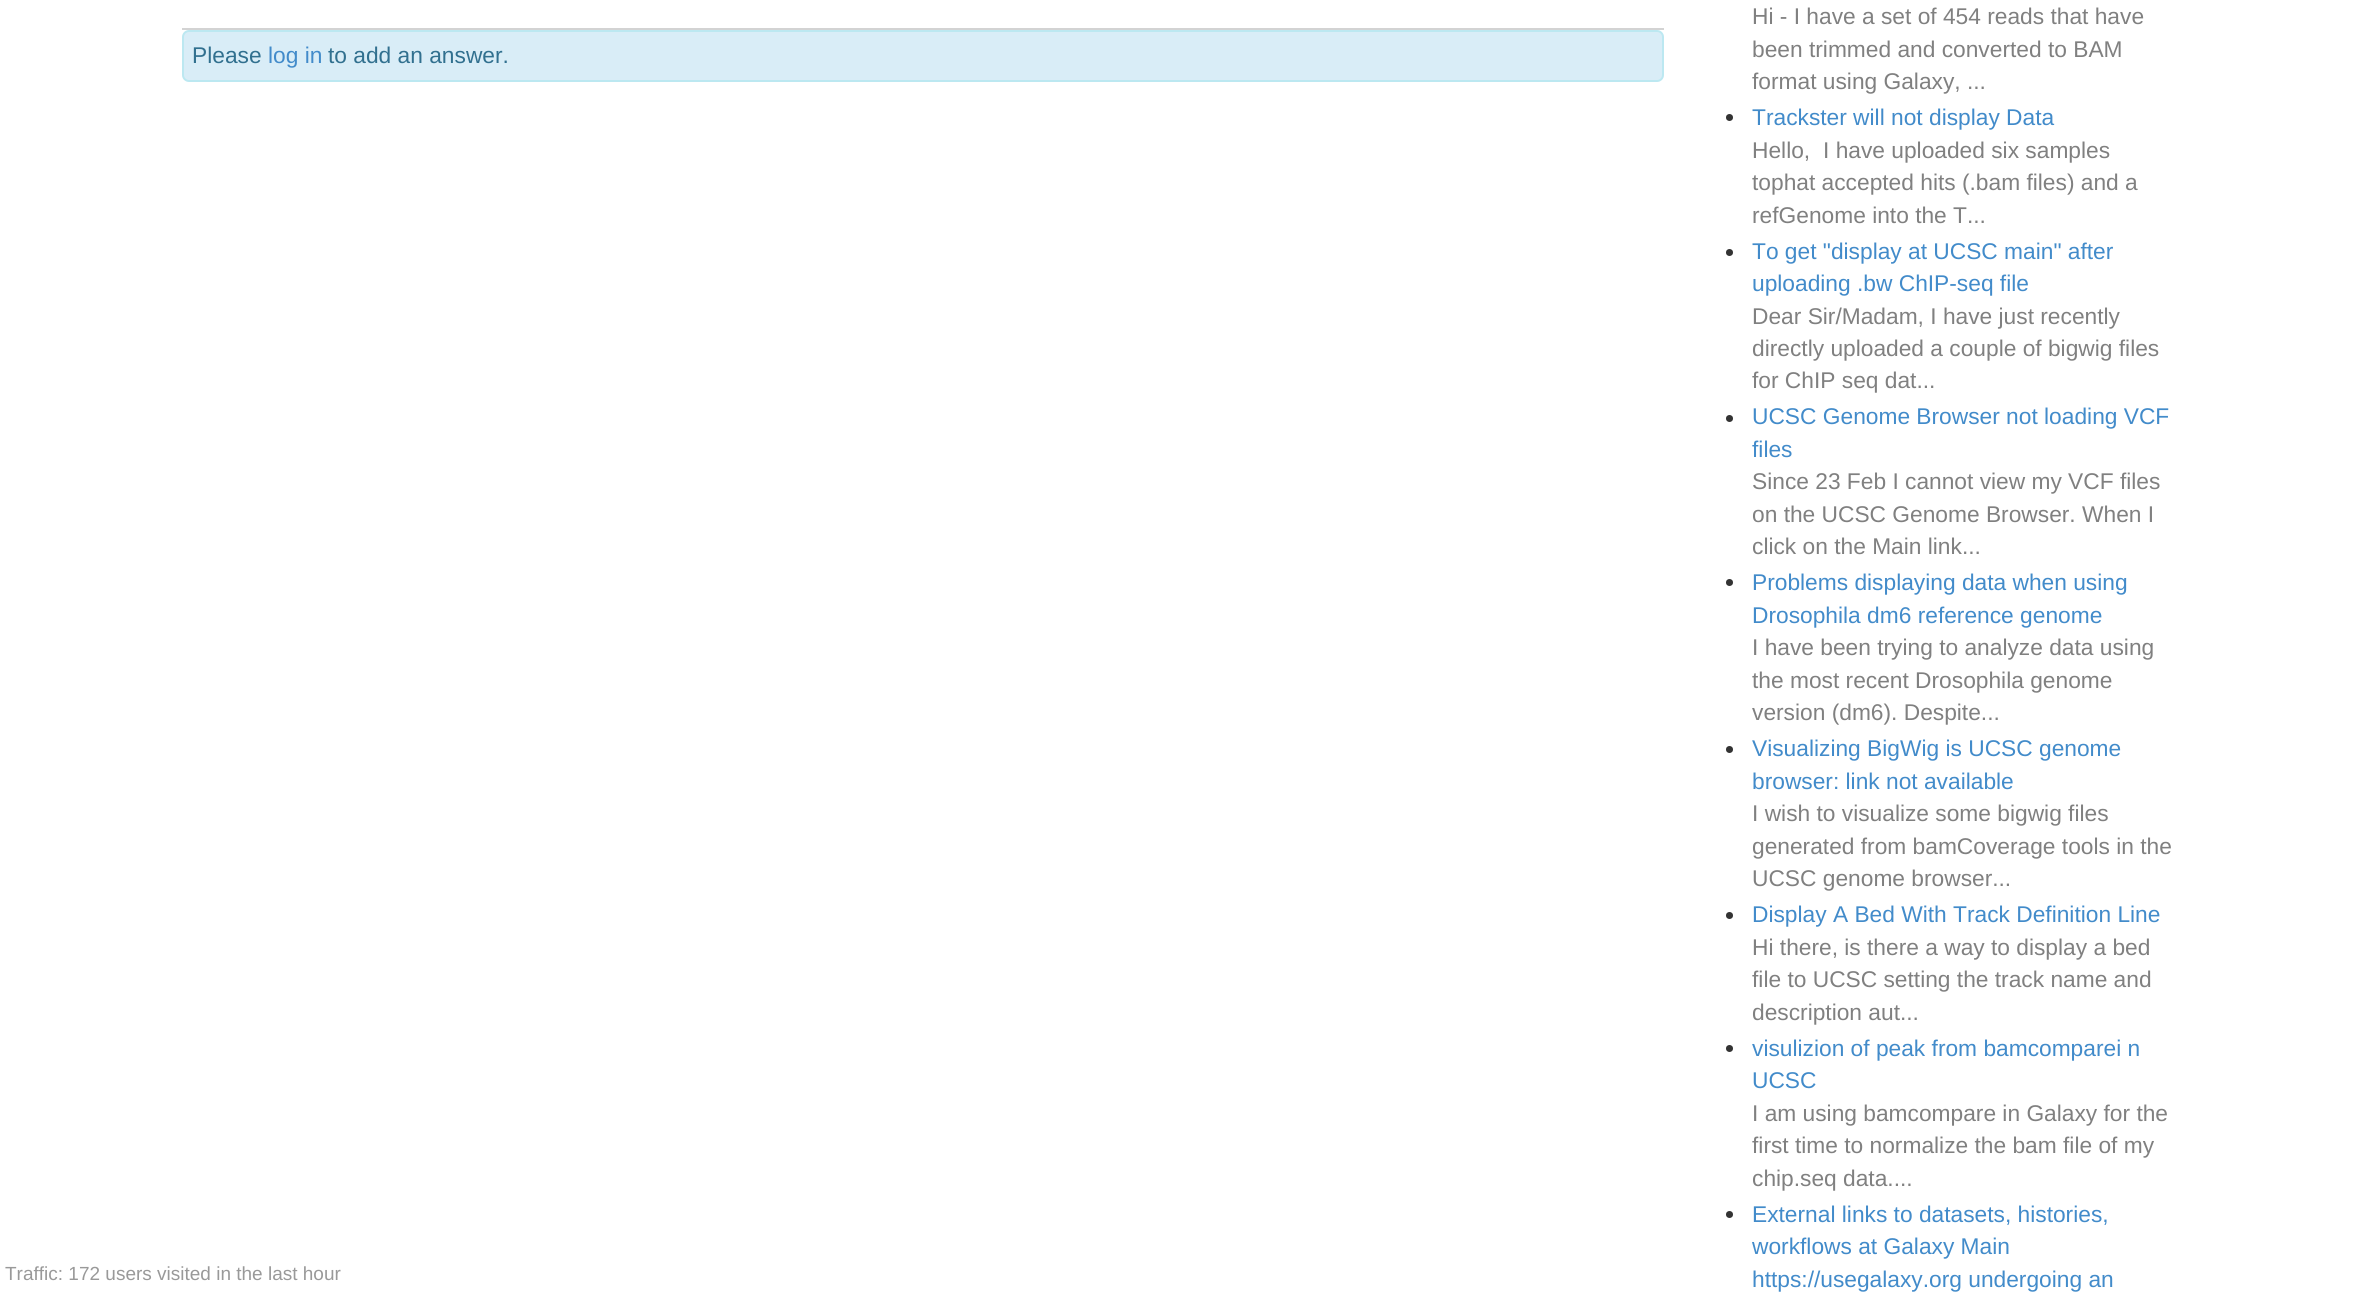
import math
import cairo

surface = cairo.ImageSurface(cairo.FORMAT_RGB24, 2357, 1293)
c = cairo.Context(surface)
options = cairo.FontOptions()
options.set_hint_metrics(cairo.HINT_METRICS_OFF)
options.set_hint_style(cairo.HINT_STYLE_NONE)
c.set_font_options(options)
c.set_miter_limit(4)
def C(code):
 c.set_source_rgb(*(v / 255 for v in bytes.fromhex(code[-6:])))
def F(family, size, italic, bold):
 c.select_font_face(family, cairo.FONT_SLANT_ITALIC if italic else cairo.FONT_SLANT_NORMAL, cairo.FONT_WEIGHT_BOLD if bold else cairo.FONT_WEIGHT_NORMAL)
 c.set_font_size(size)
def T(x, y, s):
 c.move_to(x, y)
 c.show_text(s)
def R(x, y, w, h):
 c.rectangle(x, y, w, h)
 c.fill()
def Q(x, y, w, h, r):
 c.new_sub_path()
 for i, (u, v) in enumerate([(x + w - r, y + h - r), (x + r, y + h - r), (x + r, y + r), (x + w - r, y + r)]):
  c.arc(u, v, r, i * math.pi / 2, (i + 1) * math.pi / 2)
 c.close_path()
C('ffffff')
c.paint()
F('Liberation Sans',19,0,0)
C('999999')
T(5,1280,'Traffic: 172 users visited in the last hour')
C('d3d3d3')
R(182,28,1482,2)
C('d9edf7')
Q(183,31,1480,50,6)
c.fill_preserve()
C('bce8f1')
c.stroke()
F('Liberation Sans',22.75,0,0)
C('31708f')
T(192,63,'Please')
C('428bca')
T(268,63,'log in')
C('31708f')
T(328,63,'to add an answer.')
C('808080')
T(1752,24,'Hi - I have a set of 454 reads that have')
T(1752,57,'been trimmed and converted to BAM')
T(1752,89,'format using Galaxy, ...')
C('333333')
c.new_path()
c.arc(1729.5,117.5,3.5,0,2 * math.pi)
c.fill()
C('428bca')
T(1752,125,'Trackster will not display Data')
C('808080')
T(1752,158,'Hello,')
T(1823,158,'I have uploaded six samples')
T(1752,190,'tophat accepted hits (.bam files) and a')
T(1752,223,'refGenome into the T...')
C('333333')
c.new_path()
c.arc(1729.5,252.5,3.5,0,2 * math.pi)
c.fill()
C('428bca')
T(1752,259,'To get "display at UCSC main" after')
T(1752,291,'uploading .bw ChIP-seq file')
C('808080')
T(1752,324,'Dear Sir/Madam, I have just recently')
T(1752,356,'directly uploaded a couple of bigwig files')
T(1752,388,'for ChIP seq dat...')
C('333333')
c.new_path()
c.arc(1729.5,418.5,3.5,0,2 * math.pi)
c.fill()
C('428bca')
T(1752,424,'UCSC Genome Browser not loading VCF')
T(1752,457,'files')
C('808080')
T(1752,489,'Since 23 Feb I cannot view my VCF files')
T(1752,522,'on the UCSC Genome Browser. When I')
T(1752,554,'click on the Main link...')
C('333333')
c.new_path()
c.arc(1729.5,582.5,3.5,0,2 * math.pi)
c.fill()
C('428bca')
T(1752,590,'Problems displaying data when using')
T(1752,623,'Drosophila dm6 reference genome')
C('808080')
T(1752,655,'I have been trying to analyze data using')
T(1752,688,'the most recent Drosophila genome')
T(1752,720,'version (dm6). Despite...')
C('333333')
c.new_path()
c.arc(1729.5,749.5,3.5,0,2 * math.pi)
c.fill()
C('428bca')
T(1752,756,'Visualizing BigWig is UCSC genome')
T(1752,789,'browser: link not available')
C('808080')
T(1752,821,'I wish to visualize some bigwig files')
T(1752,854,'generated from bamCoverage tools in the')
T(1752,886,'UCSC genome browser...')
C('333333')
c.new_path()
c.arc(1729.5,915.5,3.5,0,2 * math.pi)
c.fill()
C('428bca')
T(1752,922,'Display A Bed With Track Definition Line')
C('808080')
T(1752,955,'Hi there, is there a way to display a bed')
T(1752,987,'file to UCSC setting the track name and')
T(1752,1020,'description aut...')
C('333333')
c.new_path()
c.arc(1729.5,1048.5,3.5,0,2 * math.pi)
c.fill()
C('428bca')
T(1752,1056,'visulizion of peak from bamcomparei n')
T(1752,1088,'UCSC')
C('808080')
T(1752,1121,'I am using bamcompare in Galaxy for the')
T(1752,1153,'first time to normalize the bam file of my')
T(1752,1186,'chip.seq data....')
C('333333')
c.new_path()
c.arc(1729.5,1214.5,3.5,0,2 * math.pi)
c.fill()
C('428bca')
T(1752,1222,'External links to datasets, histories,')
T(1752,1254,'workflows at Galaxy Main')
T(1752,1287,'https://usegalaxy.org undergoing an')
surface.write_to_png('o.png')
